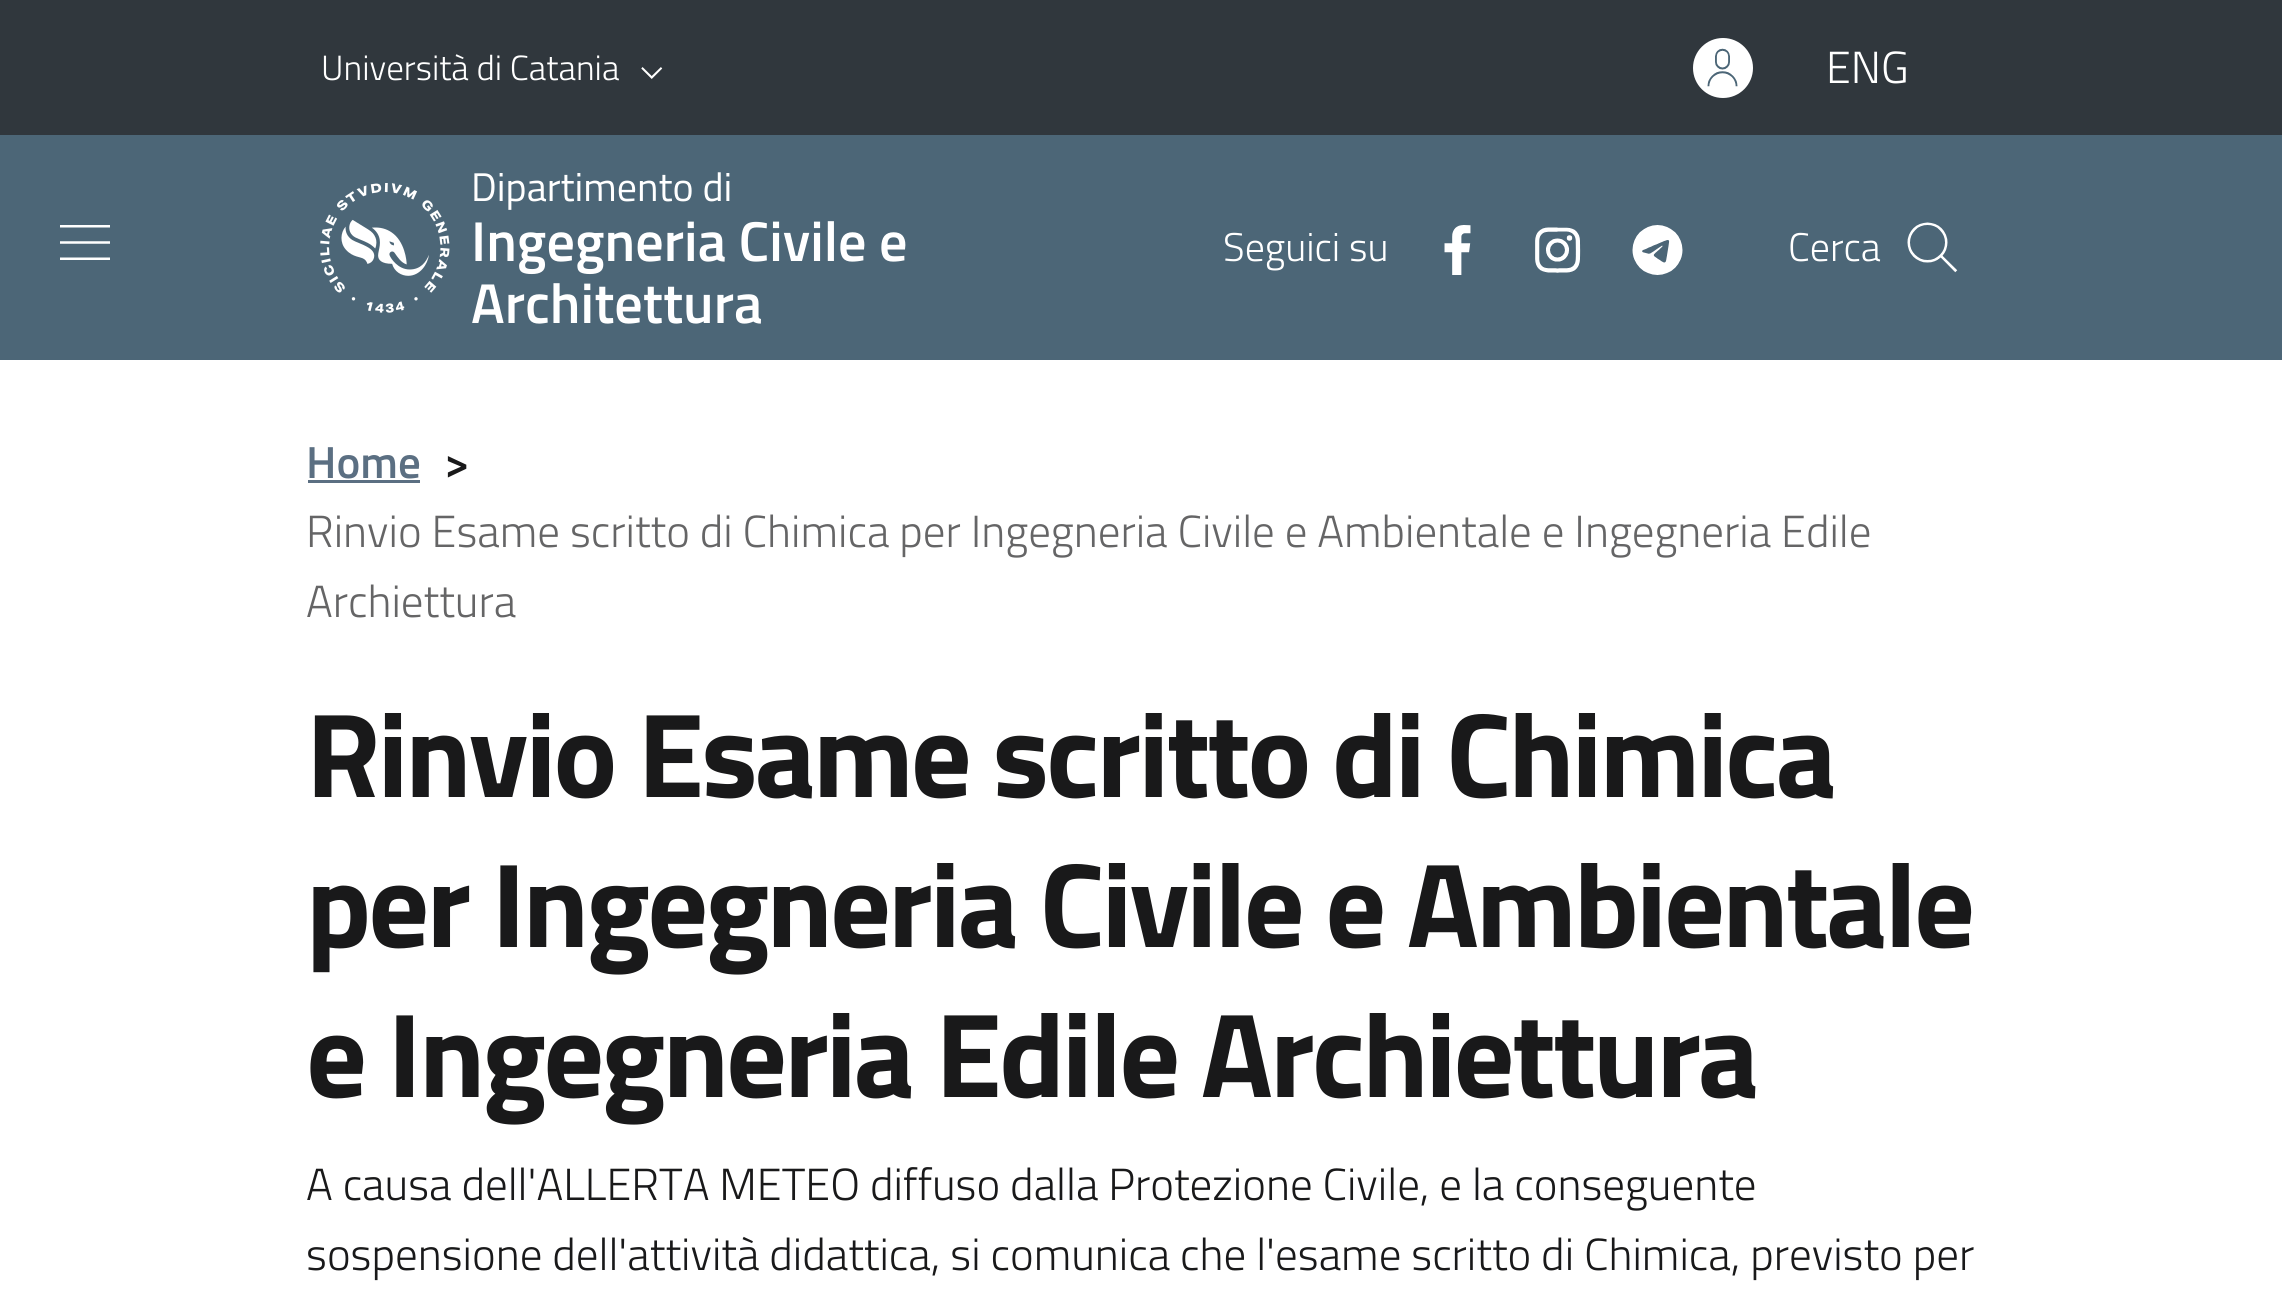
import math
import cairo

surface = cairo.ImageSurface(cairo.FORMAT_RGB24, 2282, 1316)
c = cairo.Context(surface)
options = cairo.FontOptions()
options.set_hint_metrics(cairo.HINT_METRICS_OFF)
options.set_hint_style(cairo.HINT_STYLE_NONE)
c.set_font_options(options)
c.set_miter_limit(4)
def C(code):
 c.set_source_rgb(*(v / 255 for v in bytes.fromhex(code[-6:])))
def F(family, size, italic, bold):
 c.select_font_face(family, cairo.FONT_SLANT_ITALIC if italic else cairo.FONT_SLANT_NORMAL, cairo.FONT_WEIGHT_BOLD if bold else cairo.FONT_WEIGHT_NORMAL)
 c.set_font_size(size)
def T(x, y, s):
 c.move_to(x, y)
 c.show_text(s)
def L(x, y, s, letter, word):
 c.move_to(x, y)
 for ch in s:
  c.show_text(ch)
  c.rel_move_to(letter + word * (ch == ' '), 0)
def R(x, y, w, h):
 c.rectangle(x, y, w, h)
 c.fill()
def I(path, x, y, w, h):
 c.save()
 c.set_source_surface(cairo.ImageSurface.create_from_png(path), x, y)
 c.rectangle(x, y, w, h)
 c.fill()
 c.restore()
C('ffffff')
c.paint()
C('30373d')
R(0,0,2282,135)
F('Titillium Web Light',35,0,0)
C('ffffff')
T(321,80,'Università di Catania')
I('1.png',641,67,22,12)
c.arc(1723,68,30,0,2 * math.pi)
c.fill()
I('2.png',1707,48,31,39)
F('Titillium Web Light',45,0,0)
T(1826,83,'ENG')
C('4c6677')
R(0,135,2282,225)
I('3.png',60,225,50,35)
I('4.png',320,183,130,130)
F('Titillium Web',40,0,0)
C('ffffff')
T(471,201,'Dipartimento di')
F('Titillium Web SemiBold',56.25,0,0)
T(471,261,'Ingegneria Civile e')
T(471,323,'Architettura')
F('Titillium Web Light',40,0,0)
T(1223,261,'Seguici su')
I('5.png',1444,225,27,50)
I('6.png',1535,227,46,46)
I('7.png',1632,225,51,50)
T(1788,261,'Cerca')
I('8.png',1907,222,51,51)
F('Titillium Web SemiBold',45,0,0)
C('5b6f82')
T(306,478,'Home')
R(308,480,112,3)
C('19191a')
T(444,478,'>')
F('Titillium Web Light',45,0,0)
C('656566')
T(306,547,'Rinvio Esame scritto di Chimica per Ingegneria Civile e Ambientale e Ingegneria Edile')
T(306,617,'Archiettura')
F('Titillium Web',120,0,1)
C('19191a')
L(306,797,'Rinvio Esame scritto di Chimica',-3,0)
L(306,947,'per Ingegneria Civile e Ambientale',-3,0)
L(306,1097,'e Ingegneria Edile Archiettura',-3,0)
F('Titillium Web Light',45,0,0)
T(306,1200,'A causa dell\'ALLERTA METEO diffuso dalla Protezione Civile, e la conseguente')
T(306,1270,'sospensione dell\'attività didattica, si comunica che l\'esame scritto di Chimica, previsto per')
surface.write_to_png('o.png')
